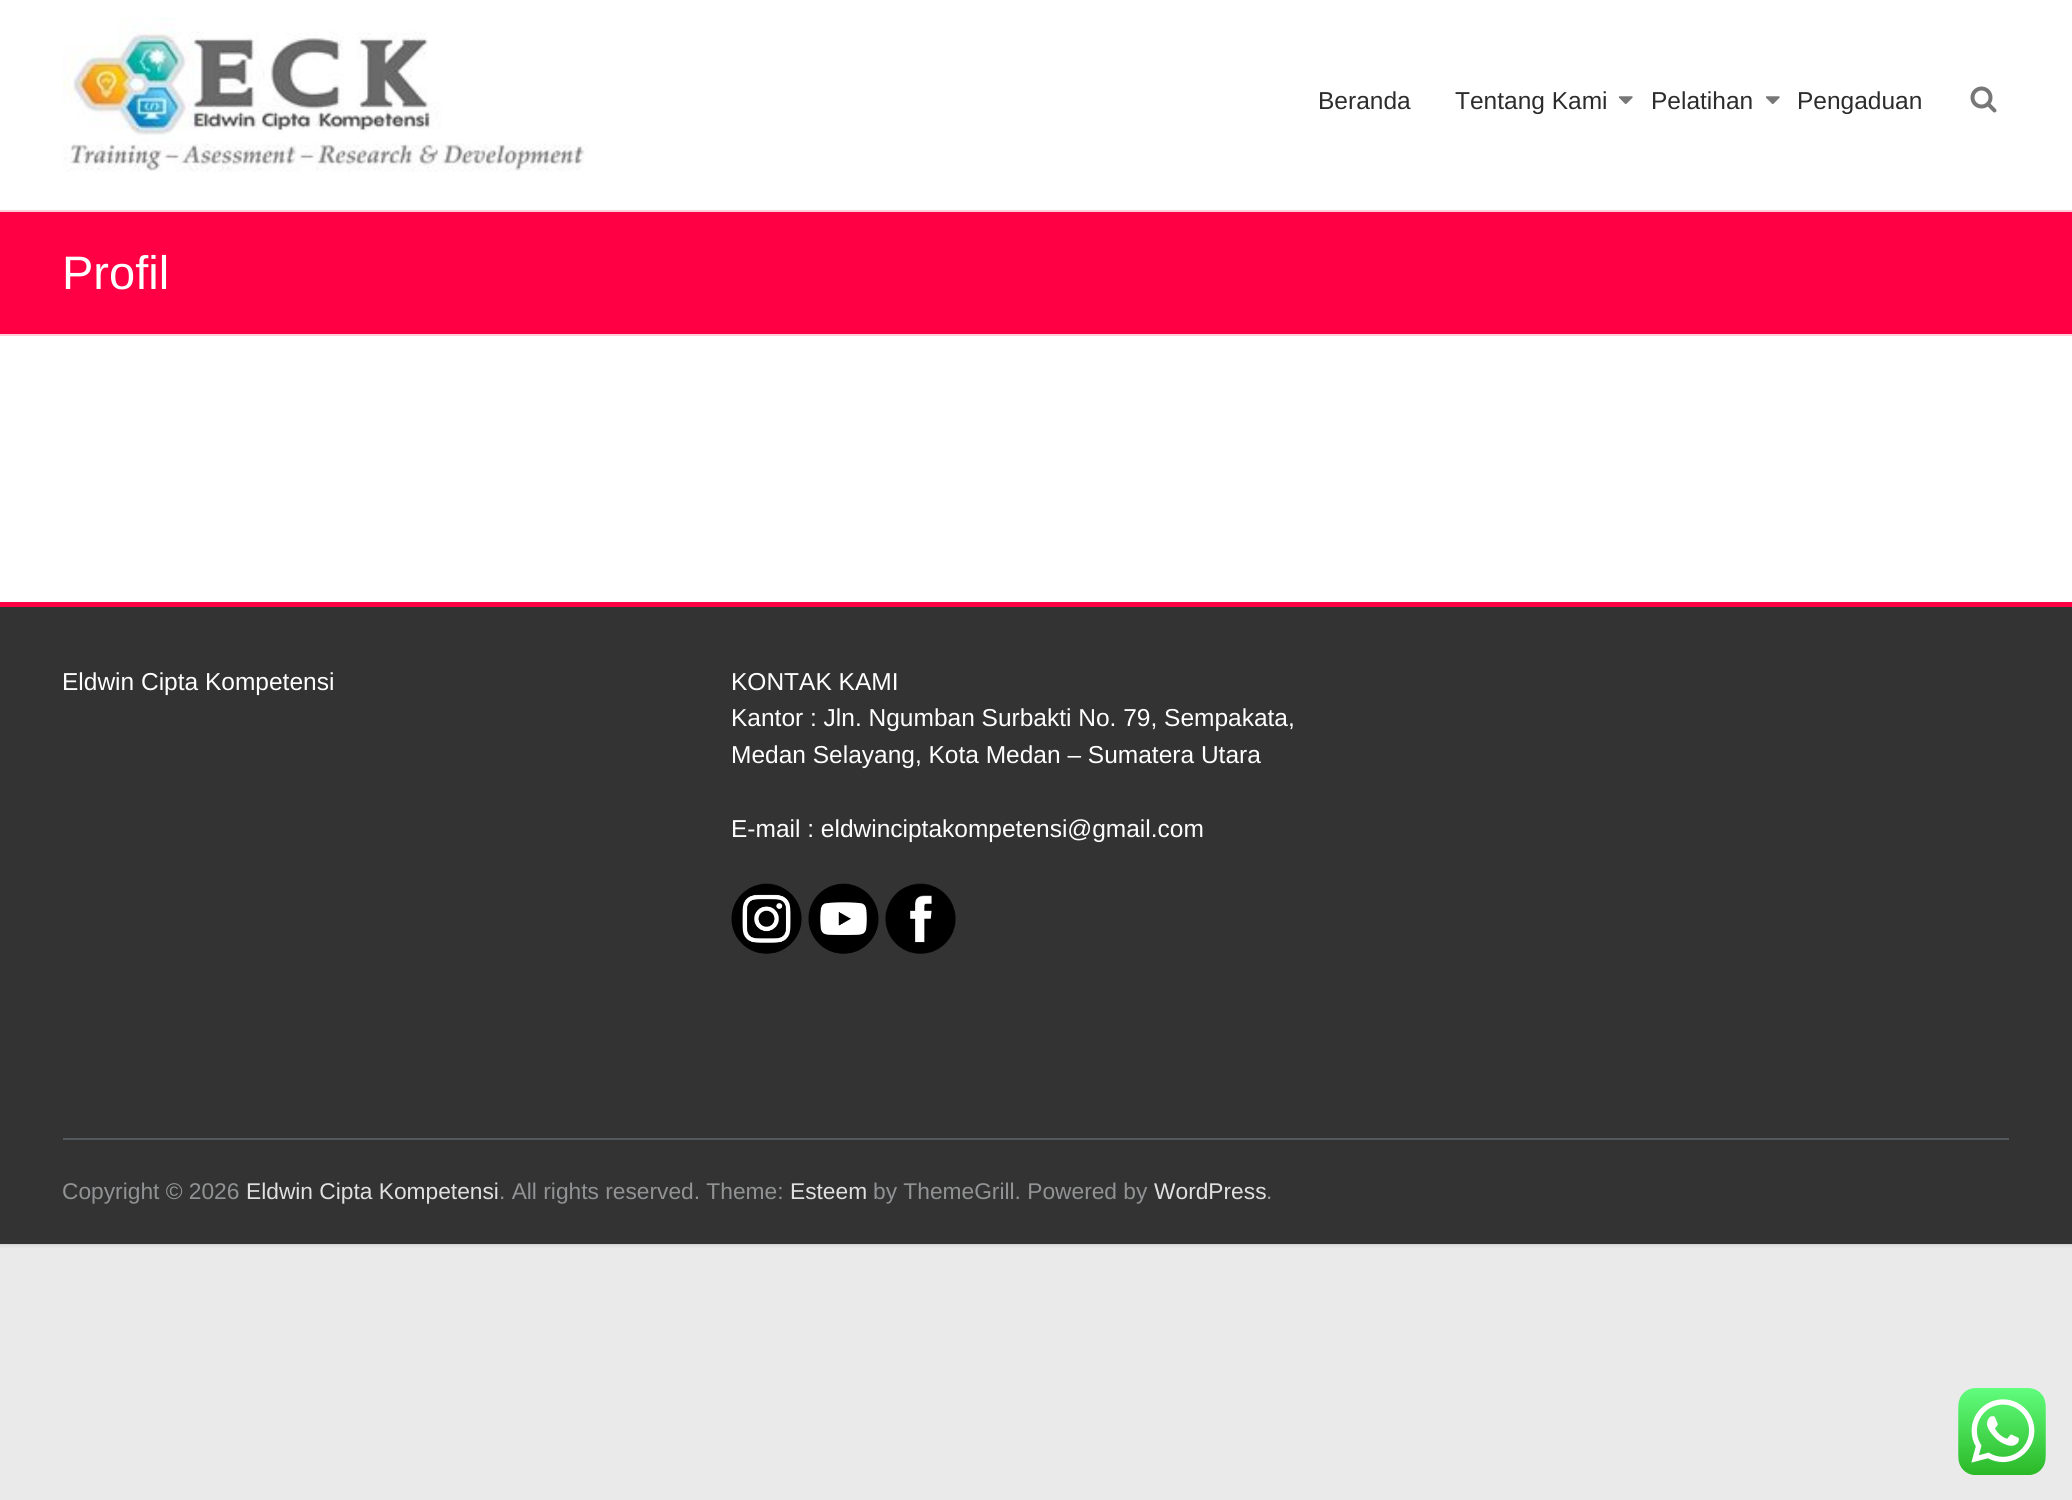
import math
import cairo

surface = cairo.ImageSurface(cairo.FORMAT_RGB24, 2072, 1500)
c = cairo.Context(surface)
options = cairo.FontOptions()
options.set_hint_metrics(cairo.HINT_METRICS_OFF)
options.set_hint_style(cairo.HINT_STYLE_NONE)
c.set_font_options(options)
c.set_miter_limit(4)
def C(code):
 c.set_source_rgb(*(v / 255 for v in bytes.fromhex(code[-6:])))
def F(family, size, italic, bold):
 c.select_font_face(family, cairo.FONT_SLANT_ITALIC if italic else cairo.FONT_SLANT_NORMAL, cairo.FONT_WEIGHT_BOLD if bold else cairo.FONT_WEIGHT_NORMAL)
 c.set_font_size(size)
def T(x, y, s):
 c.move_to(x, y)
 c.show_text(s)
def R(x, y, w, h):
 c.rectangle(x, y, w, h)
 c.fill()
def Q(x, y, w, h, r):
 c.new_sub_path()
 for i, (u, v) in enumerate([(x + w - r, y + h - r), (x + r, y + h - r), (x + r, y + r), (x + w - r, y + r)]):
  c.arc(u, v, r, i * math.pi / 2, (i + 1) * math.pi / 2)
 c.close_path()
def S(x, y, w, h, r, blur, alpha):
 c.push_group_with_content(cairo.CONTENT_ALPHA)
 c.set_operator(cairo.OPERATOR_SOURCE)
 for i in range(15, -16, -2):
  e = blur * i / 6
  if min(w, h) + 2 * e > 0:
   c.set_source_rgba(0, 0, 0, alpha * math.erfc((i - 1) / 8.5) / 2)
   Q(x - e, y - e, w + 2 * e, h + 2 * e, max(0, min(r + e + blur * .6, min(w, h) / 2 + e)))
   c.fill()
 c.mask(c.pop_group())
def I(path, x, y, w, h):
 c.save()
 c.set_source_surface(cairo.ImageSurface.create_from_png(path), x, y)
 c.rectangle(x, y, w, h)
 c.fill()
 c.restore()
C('eaeaea')
c.paint()
C('000000')
S(0,0,2072,1244,0,2.5,.2)
C('ffffff')
R(0,0,2072,602)
I('1.png',63,17,525,155)
F('Liberation Sans',24.5,0,0)
C('2c2c2c')
T(1318,109,'Beranda')
T(1455,109,'Tentang Kami')
I('2.png',1618,96,15,9)
T(1651,109,'Pelatihan')
I('2.png',1765,96,15,9)
T(1797,109,'Pengaduan')
I('3.png',1970,86,27,27)
C('ff0044')
R(0,212,2072,122)
C('ffccda')
R(0,210,2072,2)
R(0,334,2072,2)
F('Liberation Sans',47,0,0)
C('ffffff')
T(62,289,'Profil')
C('333333')
R(0,607,2072,637)
C('ff0044')
R(0,602,2072,5)
F('Liberation Sans',24.5,0,0)
C('ffffff')
T(62,690,'Eldwin Cipta Kompetensi')
T(731,690,'KONTAK KAMI')
T(731,726,'Kantor : Jln. Ngumban Surbakti No. 79, Sempakata,')
T(731,763,'Medan Selayang, Kota Medan – Sumatera Utara')
T(731,837,'E-mail : eldwinciptakompetensi@gmail.com')
I('4.png',731,883,71,71)
I('5.png',808,883,71,71)
I('6.png',885,883,71,71)
C('52585b')
R(63,1138,1946,2)
F('Liberation Sans',22.75,0,0)
C('909294')
T(62,1199,'Copyright © 2026')
C('e0e0e0')
T(246,1199,'Eldwin Cipta Kompetensi')
C('909294')
T(499,1199,'. All rights reserved. Theme:')
C('e0e0e0')
T(790,1199,'Esteem')
C('909294')
T(873,1199,'by ThemeGrill. Powered by')
C('e0e0e0')
T(1154,1199,'WordPress')
C('909294')
T(1266,1199,'.')
I('7.png',1958,1388,88,87)
surface.write_to_png('o.png')
